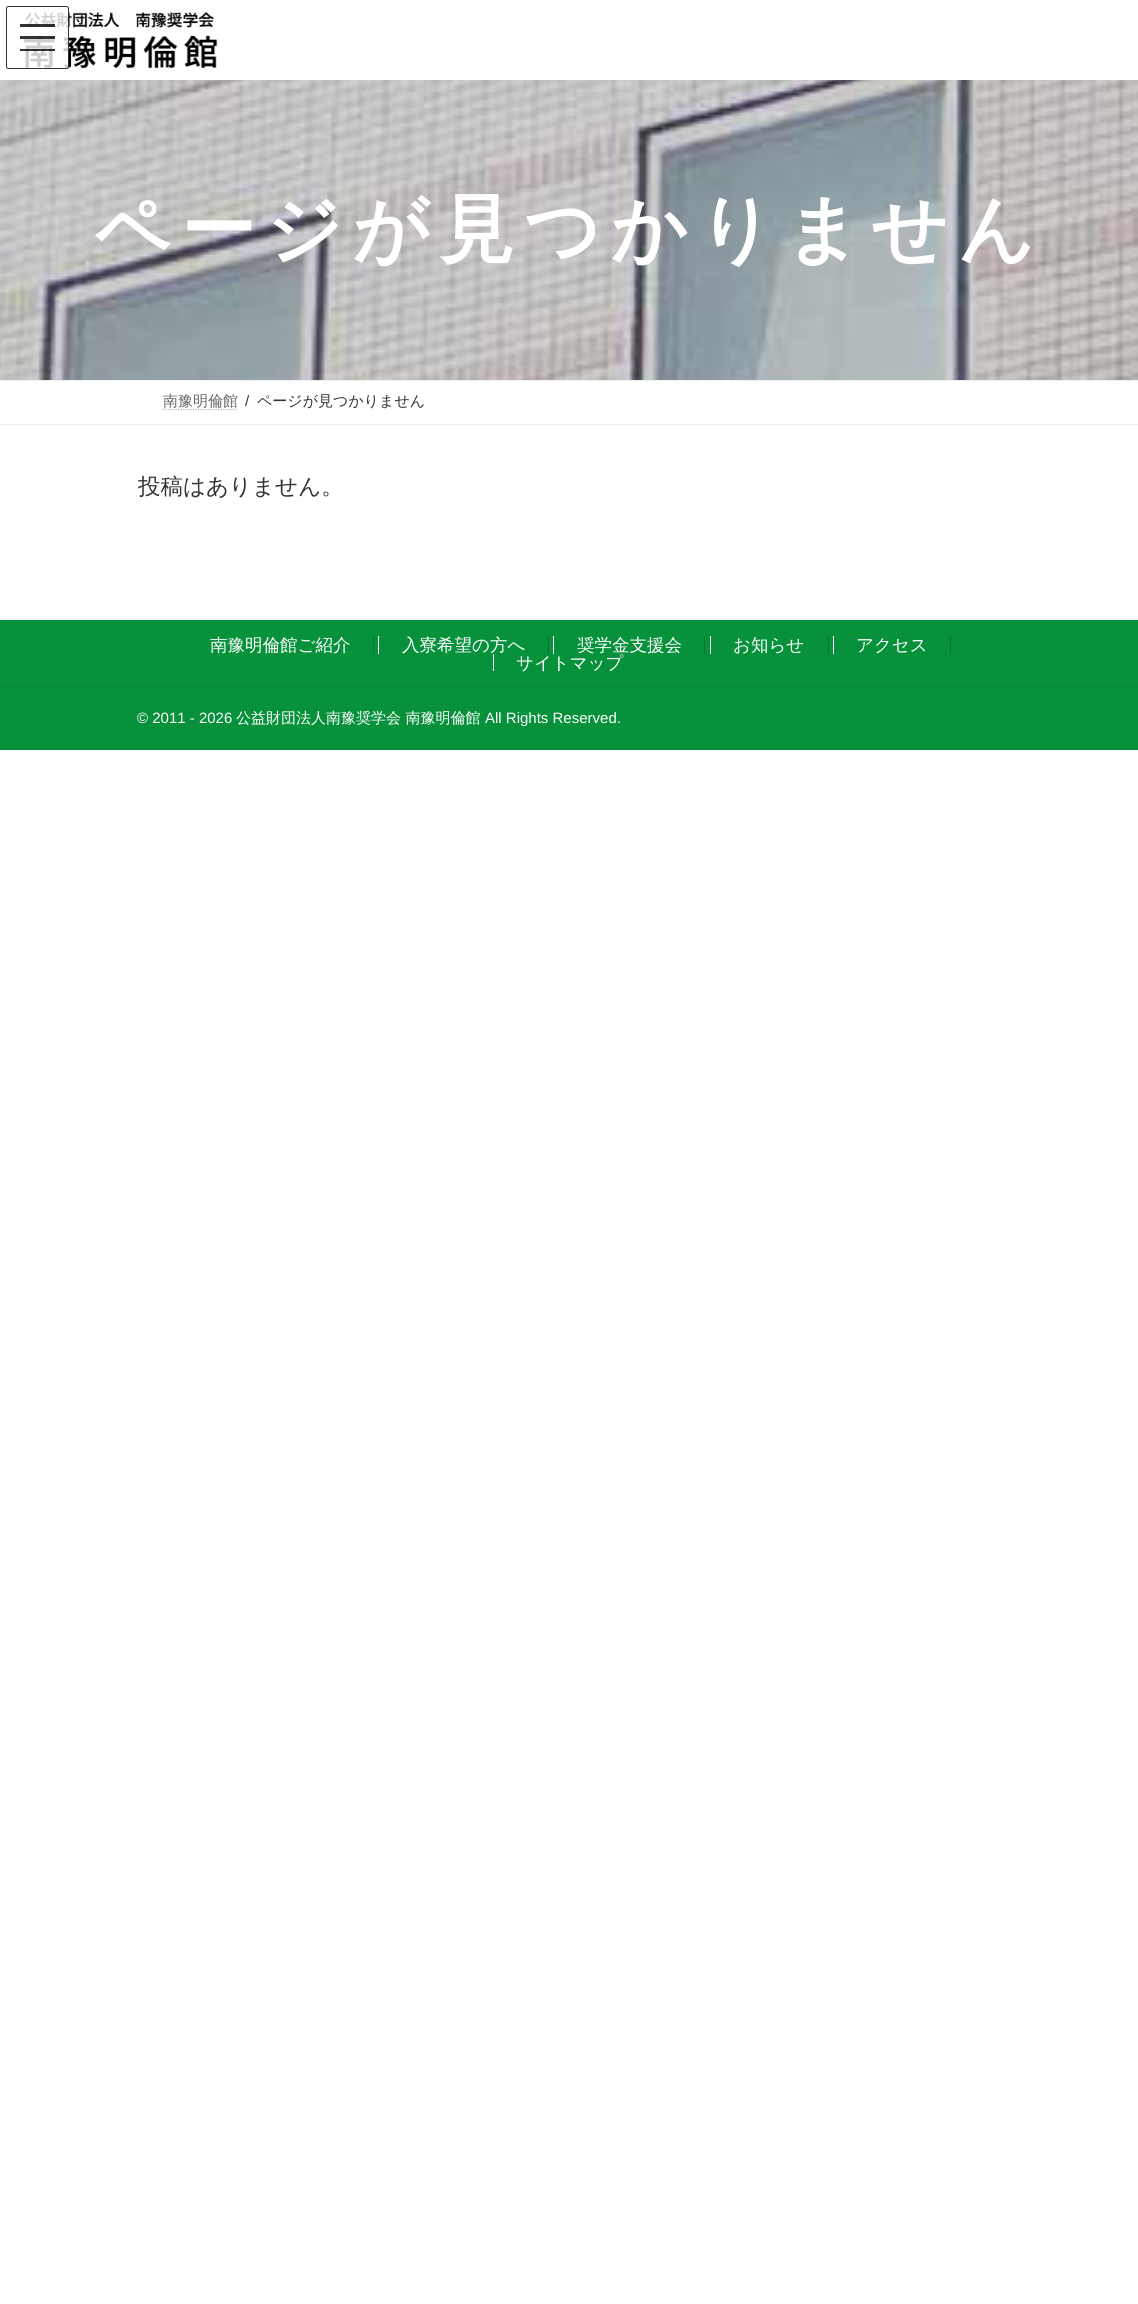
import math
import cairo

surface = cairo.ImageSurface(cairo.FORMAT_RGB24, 1138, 2304)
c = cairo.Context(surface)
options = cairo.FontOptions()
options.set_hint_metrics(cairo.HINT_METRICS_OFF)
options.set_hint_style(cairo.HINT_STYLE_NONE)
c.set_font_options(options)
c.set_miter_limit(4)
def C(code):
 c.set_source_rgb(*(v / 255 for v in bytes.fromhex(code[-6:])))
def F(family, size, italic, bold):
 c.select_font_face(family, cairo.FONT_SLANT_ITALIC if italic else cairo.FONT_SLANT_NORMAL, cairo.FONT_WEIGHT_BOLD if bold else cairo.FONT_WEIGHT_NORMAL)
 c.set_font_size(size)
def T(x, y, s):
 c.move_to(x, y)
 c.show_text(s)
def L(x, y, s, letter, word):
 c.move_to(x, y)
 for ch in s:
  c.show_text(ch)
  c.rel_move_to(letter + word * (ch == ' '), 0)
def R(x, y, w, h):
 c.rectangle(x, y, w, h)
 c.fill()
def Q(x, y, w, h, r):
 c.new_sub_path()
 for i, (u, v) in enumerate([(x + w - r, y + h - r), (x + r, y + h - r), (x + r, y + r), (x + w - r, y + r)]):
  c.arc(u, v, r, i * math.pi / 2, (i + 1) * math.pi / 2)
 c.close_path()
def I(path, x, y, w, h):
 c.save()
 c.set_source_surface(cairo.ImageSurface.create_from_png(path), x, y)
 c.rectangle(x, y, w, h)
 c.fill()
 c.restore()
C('ffffff')
c.paint()
I('1.png',23,12,195,57)
c.set_source_rgba(1,1,1,0.8)
Q(6,6,63,63,2.5)
c.fill()
c.set_source_rgba(0,0,0,0.8)
R(20,24,35,3)
R(20,36,35,3)
R(20,49,35,2)
Q(6.5,6.5,62,62,2)
C('333333')
c.set_line_width(1)
c.stroke()
I('2.png',0,80,1138,300)
F('WenQuanYi Zen Hei',75,0,1)
C('ffffff')
L(94,255,'ページが見つかりません',10,0)
C('f0f0f0')
R(0,380,1138,1)
R(0,424,1138,1)
F('WenQuanYi Zen Hei Medium',15,0,0)
C('666666')
T(163,406,'南豫明倫館')
c.new_path()
c.move_to(163,409.5)
c.line_to(238,409.5)
C('b3b3b3')
c.set_line_width(1.2)
c.set_dash([1.25,1.25])
c.stroke()
F('Liberation Sans',15,0,0)
C('333333')
T(245,406,'/')
F('WenQuanYi Zen Hei Medium',15,0,0)
T(257,406,'ページが見つかりません')
F('WenQuanYi Zen Hei Medium',22.5,0,0)
T(138,494,'投稿はありません。')
C('07913a')
R(0,620,1138,130)
C('078837')
R(0,686,1138,1)
C('06742e')
R(373,636,1,18)
F('WenQuanYi Zen Hei Medium',17.5,0,0)
C('ffffff')
T(210,651,'南豫明倫館ご紹介')
C('06742e')
R(548,636,1,18)
C('ffffff')
R(378,636,1,18)
T(402,651,'入寮希望の方へ')
C('06742e')
R(704,636,1,18)
C('ffffff')
R(553,636,1,18)
T(577,651,'奨学金支援会')
C('06742e')
R(828,636,1,18)
C('ffffff')
R(710,636,1,18)
T(733,651,'お知らせ')
C('06742e')
R(950,636,1,18)
C('ffffff')
R(833,636,1,18)
T(856,651,'アクセス')
R(493,654,1,17)
T(516,669,'サイトマップ')
F('Liberation Sans',15,0,0)
T(137,723,'© 2011 - 2026')
F('WenQuanYi Zen Hei Medium',15,0,0)
T(236,723,'公益財団法人南豫奨学会 南豫明倫館')
F('Liberation Sans',15,0,0)
T(485,723,'All Rights Reserved.')
surface.write_to_png('o.png')
